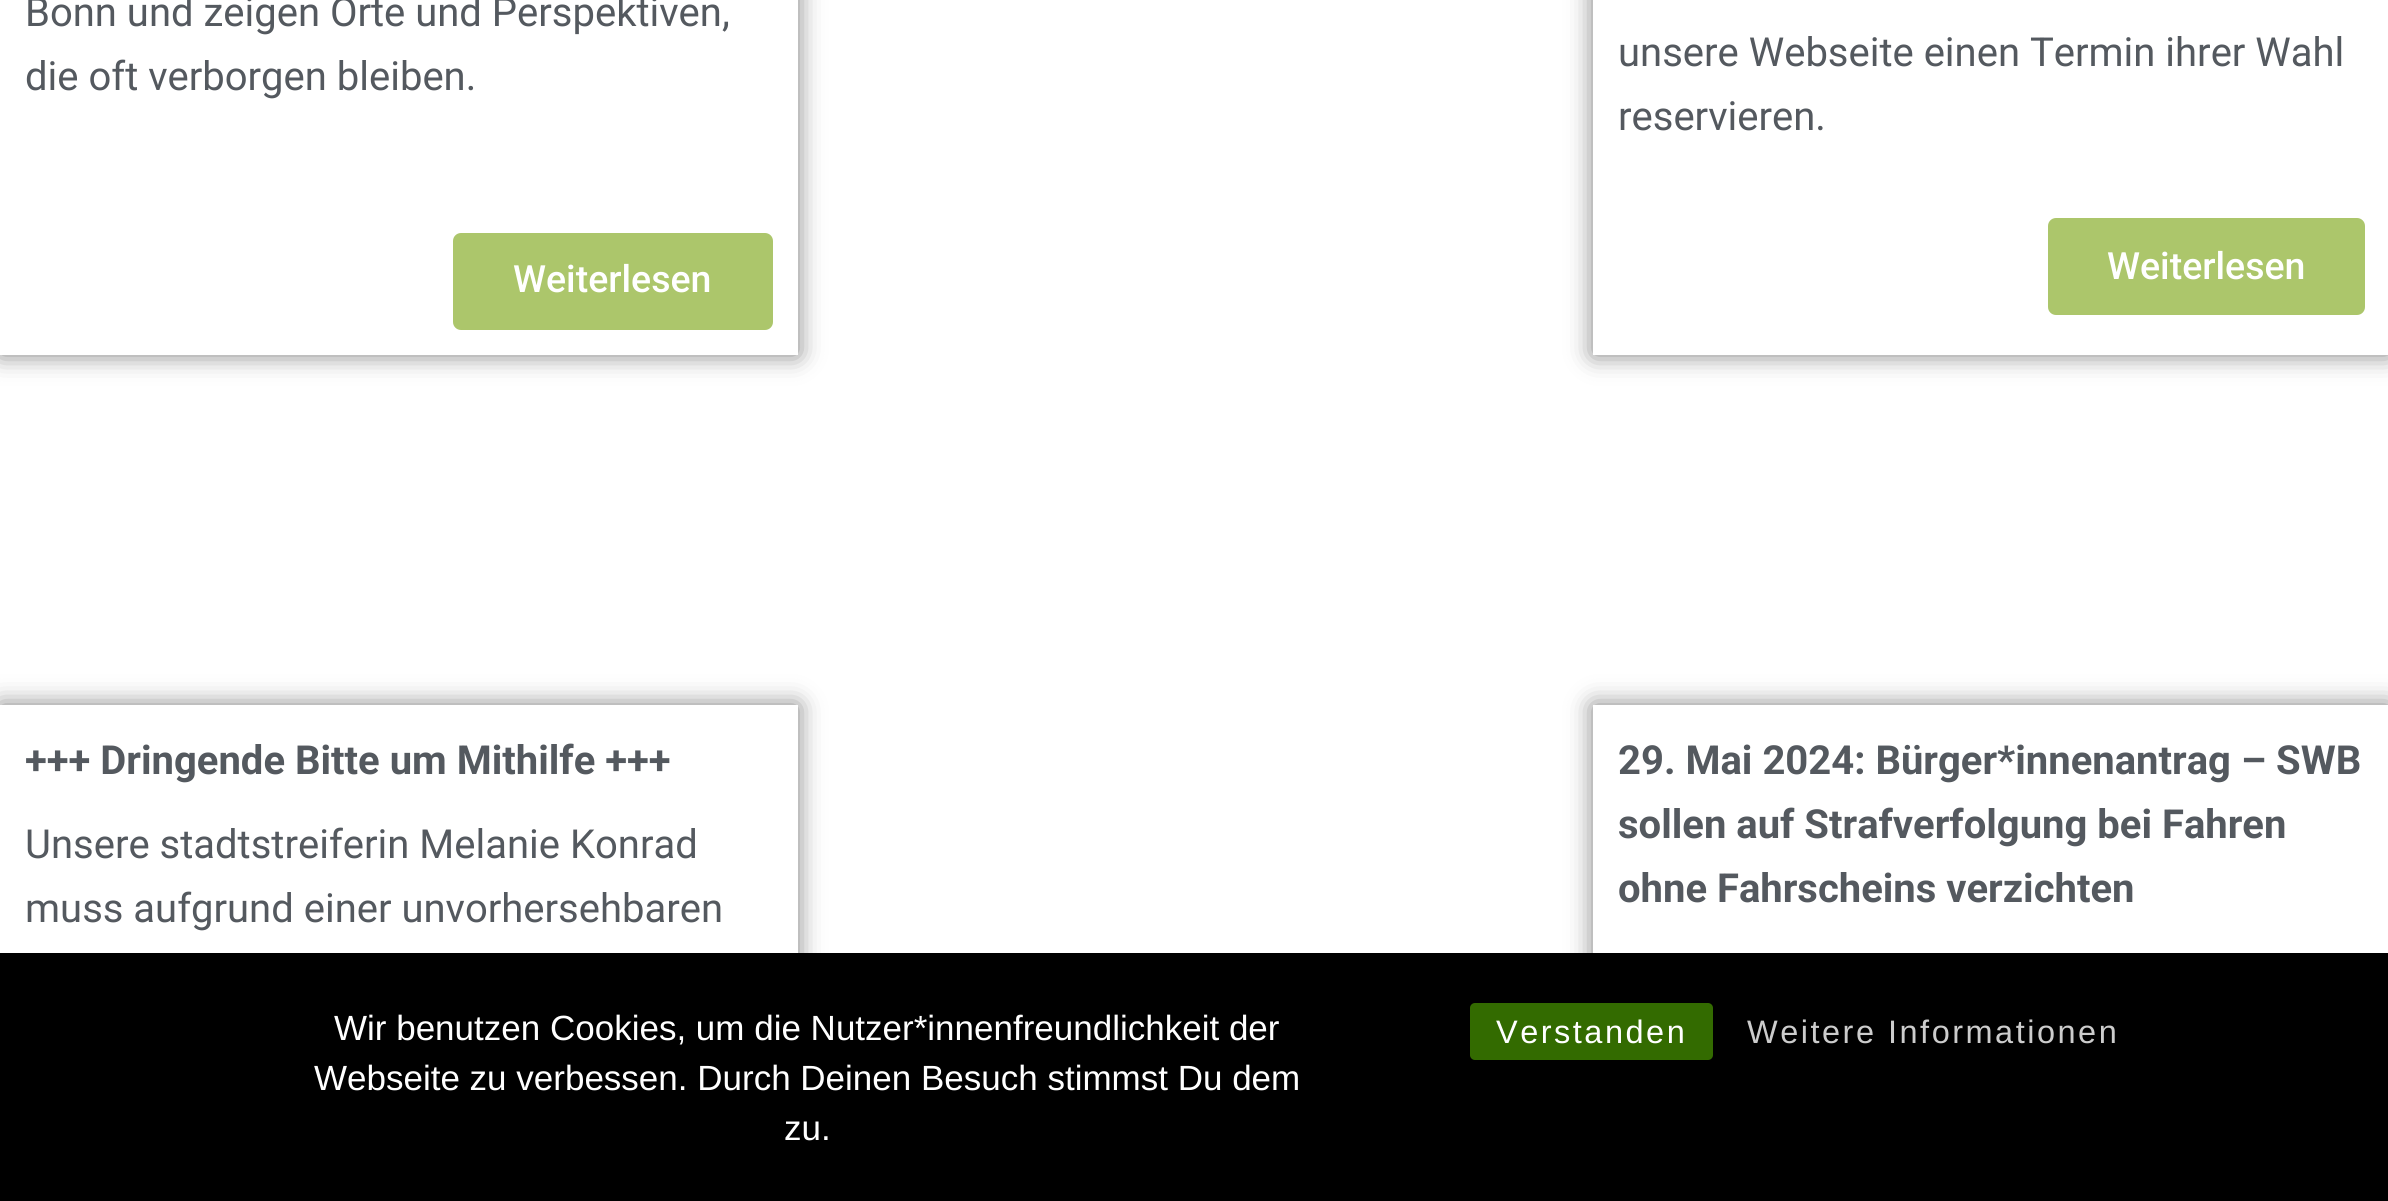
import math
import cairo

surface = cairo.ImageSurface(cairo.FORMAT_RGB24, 2388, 1201)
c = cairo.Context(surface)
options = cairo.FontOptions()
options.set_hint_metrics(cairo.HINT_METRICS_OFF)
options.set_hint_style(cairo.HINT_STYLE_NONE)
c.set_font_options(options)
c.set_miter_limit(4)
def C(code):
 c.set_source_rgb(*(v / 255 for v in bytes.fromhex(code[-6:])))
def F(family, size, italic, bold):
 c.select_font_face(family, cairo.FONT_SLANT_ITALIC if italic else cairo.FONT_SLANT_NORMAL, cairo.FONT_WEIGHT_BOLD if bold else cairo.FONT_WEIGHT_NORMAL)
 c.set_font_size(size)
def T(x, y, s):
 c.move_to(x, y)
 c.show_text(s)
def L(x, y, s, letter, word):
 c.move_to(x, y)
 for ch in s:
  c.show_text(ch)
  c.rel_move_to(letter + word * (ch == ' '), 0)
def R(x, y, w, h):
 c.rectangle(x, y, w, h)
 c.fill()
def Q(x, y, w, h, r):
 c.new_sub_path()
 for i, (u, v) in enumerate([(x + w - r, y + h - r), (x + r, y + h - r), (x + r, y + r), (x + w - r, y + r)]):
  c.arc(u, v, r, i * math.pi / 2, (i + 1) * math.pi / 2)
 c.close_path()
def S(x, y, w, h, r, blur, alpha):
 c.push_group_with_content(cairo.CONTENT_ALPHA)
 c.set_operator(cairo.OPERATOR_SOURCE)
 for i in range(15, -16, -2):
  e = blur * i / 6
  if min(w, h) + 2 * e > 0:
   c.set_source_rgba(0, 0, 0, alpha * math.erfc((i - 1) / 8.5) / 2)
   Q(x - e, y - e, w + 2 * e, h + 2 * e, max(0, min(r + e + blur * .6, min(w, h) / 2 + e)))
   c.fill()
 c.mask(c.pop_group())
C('ffffff')
c.paint()
c.save()
c.set_fill_rule(cairo.FILL_RULE_EVEN_ODD)
c.new_path()
c.move_to(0,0)
c.line_to(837,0)
c.line_to(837,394)
c.line_to(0,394)
c.close_path()
c.move_to(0,-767)
c.line_to(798,-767)
c.line_to(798,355)
c.line_to(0,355)
c.close_path()
c.clip()
C('000000')
S(0,-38,798,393,0,12.5,.5)
c.restore()
F('Roboto',40,0,0)
C('54595f')
T(25,26,'Bonn und zeigen Orte und Perspektiven,')
T(25,90,'die oft verborgen bleiben.')
C('acc66b')
Q(453,233,320,97,8)
c.fill()
F('Roboto Medium',37.5,0,0)
C('ffffff')
T(513,292,'Weiterlesen')
c.save()
c.set_fill_rule(cairo.FILL_RULE_EVEN_ODD)
c.new_path()
c.move_to(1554,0)
c.line_to(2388,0)
c.line_to(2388,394)
c.line_to(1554,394)
c.close_path()
c.move_to(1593,-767)
c.line_to(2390,-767)
c.line_to(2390,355)
c.line_to(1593,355)
c.close_path()
c.clip()
C('000000')
S(1593,-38,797,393,0,12.5,.5)
c.restore()
F('Roboto',40,0,0)
C('54595f')
T(1618,66,'unsere Webseite einen Termin ihrer Wahl')
T(1618,130,'reservieren.')
C('acc66b')
Q(2048,218,317,97,8)
c.fill()
F('Roboto Medium',37.5,0,0)
C('ffffff')
T(2107,279,'Weiterlesen')
c.save()
c.set_fill_rule(cairo.FILL_RULE_EVEN_ODD)
c.new_path()
c.move_to(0,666)
c.line_to(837,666)
c.line_to(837,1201)
c.line_to(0,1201)
c.close_path()
c.move_to(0,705)
c.line_to(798,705)
c.line_to(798,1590)
c.line_to(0,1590)
c.close_path()
c.clip()
C('000000')
S(0,705,798,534,0,12.5,.5)
c.restore()
F('Roboto',40,0,1)
C('54595f')
T(25,774,'+++ Dringende Bitte um Mithilfe +++')
F('Roboto',40,0,0)
T(25,858,'Unsere stadtstreiferin Melanie Konrad')
T(25,922,'muss aufgrund einer unvorhersehbaren')
c.save()
c.set_fill_rule(cairo.FILL_RULE_EVEN_ODD)
c.new_path()
c.move_to(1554,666)
c.line_to(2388,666)
c.line_to(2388,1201)
c.line_to(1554,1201)
c.close_path()
c.move_to(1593,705)
c.line_to(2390,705)
c.line_to(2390,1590)
c.line_to(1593,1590)
c.close_path()
c.clip()
C('000000')
S(1593,705,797,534,0,12.5,.5)
c.restore()
F('Roboto',40,0,1)
T(1618,774,'29. Mai 2024: Bürger*innenantrag – SWB')
T(1618,838,'sollen auf Strafverfolgung bei Fahren')
T(1618,902,'ohne Fahrscheins verzichten')
C('000000')
R(0,953,2388,248)
F('Liberation Sans',35,0,0)
C('ffffff')
T(334,1040,'Wir benutzen Cookies, um die Nutzer*innenfreundlichkeit der')
T(314,1090,'Webseite zu verbessen. Durch Deinen Besuch stimmst Du dem')
T(784,1140,'zu.')
C('336b00')
Q(1470,1003,243,57,5)
c.fill()
F('Liberation Sans',32.5,0,0)
C('ffffff')
L(1496,1043,'Verstanden',2.5,0)
C('cccccc')
L(1747,1043,'Weitere Informationen',2.5,0)
surface.write_to_png('o.png')
